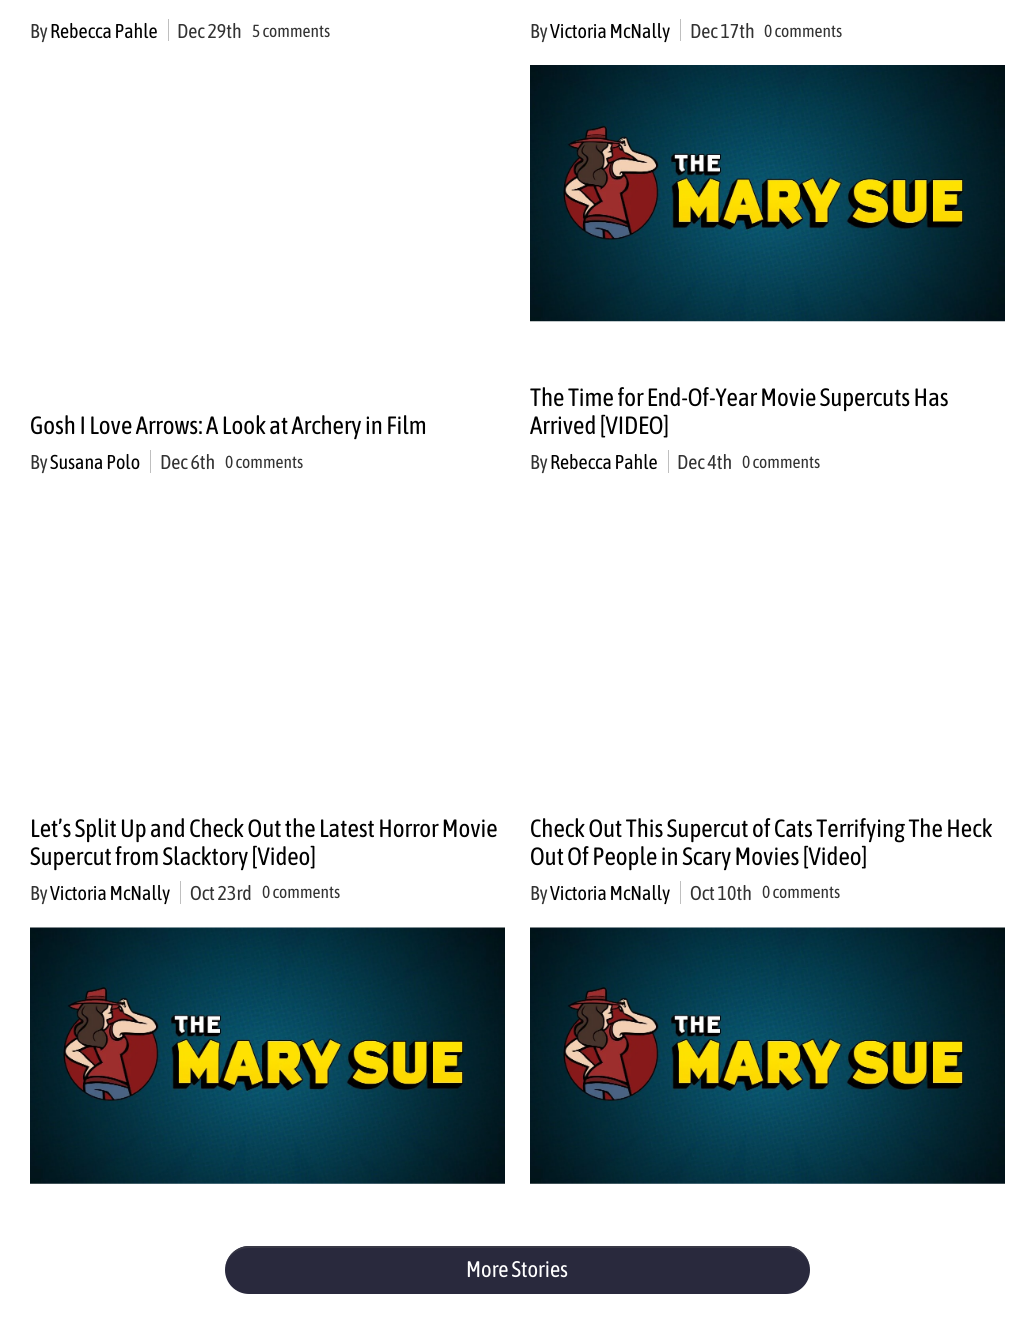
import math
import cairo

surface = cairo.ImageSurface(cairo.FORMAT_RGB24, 1034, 1326)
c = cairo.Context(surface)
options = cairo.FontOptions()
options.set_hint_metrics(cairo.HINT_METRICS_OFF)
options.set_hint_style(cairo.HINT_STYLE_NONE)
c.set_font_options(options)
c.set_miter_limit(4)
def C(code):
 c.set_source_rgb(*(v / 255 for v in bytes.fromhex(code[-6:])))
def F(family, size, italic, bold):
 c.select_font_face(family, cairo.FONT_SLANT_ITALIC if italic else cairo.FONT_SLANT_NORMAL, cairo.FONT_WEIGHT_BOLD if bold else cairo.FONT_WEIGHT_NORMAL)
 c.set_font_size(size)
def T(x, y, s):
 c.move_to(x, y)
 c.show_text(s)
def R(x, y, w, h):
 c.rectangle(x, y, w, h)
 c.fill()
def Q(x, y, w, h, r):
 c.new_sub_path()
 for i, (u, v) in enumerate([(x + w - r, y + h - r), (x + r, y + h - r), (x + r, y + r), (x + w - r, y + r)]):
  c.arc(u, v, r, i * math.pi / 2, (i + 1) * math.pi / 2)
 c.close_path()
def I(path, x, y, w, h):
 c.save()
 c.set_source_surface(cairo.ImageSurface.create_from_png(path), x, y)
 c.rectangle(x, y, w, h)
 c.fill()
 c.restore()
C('ffffff')
c.paint()
F('Asap Condensed',20,0,0)
C('333333')
T(30,38,'By')
C('000000')
T(50,38,'Rebecca Pahle')
C('333333')
T(177,38,'Dec 29th')
C('bfbfbf')
R(168,19,1,22)
F('Asap Condensed',17.5,0,0)
C('333333')
T(252,37,'5 comments')
F('Asap Condensed',20,0,0)
T(530,38,'By')
C('000000')
T(550,38,'Victoria McNally')
C('333333')
T(690,38,'Dec 17th')
C('bfbfbf')
R(680,19,1,22)
F('Asap Condensed',17.5,0,0)
C('333333')
T(764,37,'0 comments')
I('1.png',530,65,475,257)
F('Asap Condensed',25,0,0)
C('000000')
T(30,434,'Gosh I Love Arrows: A Look at Archery in Film')
F('Asap Condensed',20,0,0)
C('333333')
T(30,469,'By')
C('000000')
T(50,469,'Susana Polo')
C('333333')
T(160,469,'Dec 6th')
C('bfbfbf')
R(150,450,1,23)
F('Asap Condensed',17.5,0,0)
C('333333')
T(225,468,'0 comments')
F('Asap Condensed',25,0,0)
C('000000')
T(530,406,'The Time for End-Of-Year Movie Supercuts Has')
T(530,434,'Arrived [VIDEO]')
F('Asap Condensed',20,0,0)
C('333333')
T(530,469,'By')
C('000000')
T(550,469,'Rebecca Pahle')
C('333333')
T(677,469,'Dec 4th')
C('bfbfbf')
R(668,450,1,23)
F('Asap Condensed',17.5,0,0)
C('333333')
T(742,468,'0 comments')
F('Asap Condensed',25,0,0)
C('000000')
T(30,837,'Let’s Split Up and Check Out the Latest Horror Movie')
T(30,865,'Supercut from Slacktory [Video]')
F('Asap Condensed',20,0,0)
C('333333')
T(30,900,'By')
C('000000')
T(50,900,'Victoria McNally')
C('333333')
T(190,900,'Oct 23rd')
C('bfbfbf')
R(180,881,1,23)
F('Asap Condensed',17.5,0,0)
C('333333')
T(262,898,'0 comments')
I('2.png',30,927,475,257)
F('Asap Condensed',25,0,0)
C('000000')
T(530,837,'Check Out This Supercut of Cats Terrifying The Heck')
T(530,865,'Out Of People in Scary Movies [Video]')
F('Asap Condensed',20,0,0)
C('333333')
T(530,900,'By')
C('000000')
T(550,900,'Victoria McNally')
C('333333')
T(690,900,'Oct 10th')
C('bfbfbf')
R(680,881,1,23)
F('Asap Condensed',17.5,0,0)
C('333333')
T(762,898,'0 comments')
I('2.png',530,927,475,257)
C('29293d')
Q(225,1246,585,48,24)
c.fill()
C('383846')
c.new_path()
c.move_to(249,1248)
c.line_to(786,1248)
c.curve_to(799,1248,810,1258,810,1271)
c.curve_to(810,1257,799,1246,786,1246)
c.line_to(249,1246)
c.curve_to(236,1246,225,1257,225,1271)
c.curve_to(225,1258,236,1248,249,1248)
c.close_path()
c.fill()
F('Asap Condensed',22.5,0,0)
C('ffffff')
T(466,1277,'More Stories')
surface.write_to_png('o.png')
